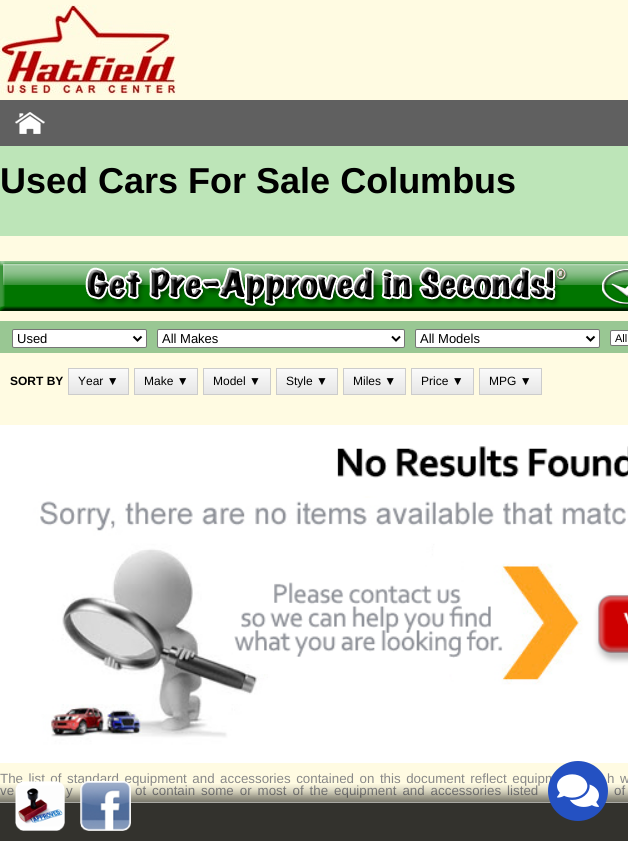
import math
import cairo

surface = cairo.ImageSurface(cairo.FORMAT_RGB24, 628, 841)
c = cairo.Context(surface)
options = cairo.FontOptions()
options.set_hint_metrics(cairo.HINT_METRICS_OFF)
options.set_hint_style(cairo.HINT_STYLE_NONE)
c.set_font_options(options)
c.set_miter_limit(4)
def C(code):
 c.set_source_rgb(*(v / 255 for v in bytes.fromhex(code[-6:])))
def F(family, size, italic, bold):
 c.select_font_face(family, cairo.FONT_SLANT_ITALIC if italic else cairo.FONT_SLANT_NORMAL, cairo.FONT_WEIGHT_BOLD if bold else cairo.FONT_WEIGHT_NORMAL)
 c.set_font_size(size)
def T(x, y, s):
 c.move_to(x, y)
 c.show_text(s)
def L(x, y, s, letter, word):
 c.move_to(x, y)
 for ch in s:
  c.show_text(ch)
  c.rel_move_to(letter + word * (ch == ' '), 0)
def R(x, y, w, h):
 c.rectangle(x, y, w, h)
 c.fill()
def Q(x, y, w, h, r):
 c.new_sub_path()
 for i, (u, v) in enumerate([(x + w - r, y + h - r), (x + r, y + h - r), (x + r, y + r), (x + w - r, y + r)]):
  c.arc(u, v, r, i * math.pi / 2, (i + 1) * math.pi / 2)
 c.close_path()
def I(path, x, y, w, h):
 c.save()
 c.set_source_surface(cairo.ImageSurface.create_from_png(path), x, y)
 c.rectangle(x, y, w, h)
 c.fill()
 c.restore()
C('fffbe2')
c.paint()
I('1.png',0,5,176,90)
C('606060')
R(0,100,628,46)
I('2.png',15,112,30,22)
C('bde5b8')
R(0,146,628,90)
F('Liberation Sans',36,0,1)
C('000000')
T(0,193,'Used Cars For Sale Columbus')
I('3.png',0,261,628,50)
C('99c793')
R(0,321,628,32)
C('ffffff')
Q(12.5,329.5,134,18,1.5)
c.fill_preserve()
C('767676')
c.set_line_width(1)
c.stroke()
c.new_path()
c.move_to(133.5,336.5)
c.line_to(137.5,340.5)
c.line_to(141.5,336.5)
C('000000')
c.set_line_width(2)
c.stroke()
F('Liberation Sans',13,0,0)
T(17,343,'Used')
C('ffffff')
Q(157.5,329.5,247,18,1.5)
c.fill_preserve()
C('767676')
c.set_line_width(1)
c.stroke()
c.new_path()
c.move_to(392,336.5)
c.line_to(396,340.5)
c.line_to(400,336.5)
C('000000')
c.set_line_width(2)
c.stroke()
T(162,343,'All Makes')
C('ffffff')
Q(415.5,329.5,184,18,1.5)
c.fill_preserve()
C('767676')
c.set_line_width(1)
c.stroke()
c.new_path()
c.move_to(586.5,336.5)
c.line_to(590.5,340.5)
c.line_to(594.5,336.5)
C('000000')
c.set_line_width(2)
c.stroke()
T(420,343,'All Models')
C('ffffff')
Q(610.5,330.5,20,15,1.5)
c.fill_preserve()
C('767676')
c.set_line_width(1)
c.stroke()
F('Liberation Sans',11,0,0)
C('000000')
T(615,342,'All')
F('Liberation Sans',12,0,1)
T(10,385,'SORT BY')
gradient = cairo.LinearGradient(99,369,99,394)
gradient.add_color_stop_rgba(0,0.98,0.98,0.98,1)
gradient.add_color_stop_rgba(1,0.902,0.902,0.902,1)
c.set_source(gradient)
R(69,369,59,25)
c.rectangle(68.5,368.5,60,26)
C('cccccc')
c.stroke()
F('Liberation Sans',12,0,0)
C('000000')
T(78,385,'Year ▼')
gradient = cairo.LinearGradient(166,369,166,394)
gradient.add_color_stop_rgba(0,0.98,0.98,0.98,1)
gradient.add_color_stop_rgba(1,0.902,0.902,0.902,1)
c.set_source(gradient)
R(135,369,62,25)
c.rectangle(134.5,368.5,63,26)
C('cccccc')
c.stroke()
C('000000')
T(144,385,'Make ▼')
gradient = cairo.LinearGradient(237,369,237,394)
gradient.add_color_stop_rgba(0,0.98,0.98,0.98,1)
gradient.add_color_stop_rgba(1,0.902,0.902,0.902,1)
c.set_source(gradient)
R(204,369,66,25)
c.rectangle(203.5,368.5,67,26)
C('cccccc')
c.stroke()
C('000000')
T(213,385,'Model ▼')
gradient = cairo.LinearGradient(307,369,307,394)
gradient.add_color_stop_rgba(0,0.98,0.98,0.98,1)
gradient.add_color_stop_rgba(1,0.902,0.902,0.902,1)
c.set_source(gradient)
R(277,369,60,25)
c.rectangle(276.5,368.5,61,26)
C('cccccc')
c.stroke()
C('000000')
T(286,385,'Style ▼')
gradient = cairo.LinearGradient(375,369,375,394)
gradient.add_color_stop_rgba(0,0.98,0.98,0.98,1)
gradient.add_color_stop_rgba(1,0.902,0.902,0.902,1)
c.set_source(gradient)
R(344,369,61,25)
c.rectangle(343.5,368.5,62,26)
C('cccccc')
c.stroke()
C('000000')
T(353,385,'Miles ▼')
gradient = cairo.LinearGradient(443,369,443,394)
gradient.add_color_stop_rgba(0,0.98,0.98,0.98,1)
gradient.add_color_stop_rgba(1,0.902,0.902,0.902,1)
c.set_source(gradient)
R(412,369,61,25)
c.rectangle(411.5,368.5,62,26)
C('cccccc')
c.stroke()
C('000000')
T(421,385,'Price ▼')
gradient = cairo.LinearGradient(511,369,511,394)
gradient.add_color_stop_rgba(0,0.98,0.98,0.98,1)
gradient.add_color_stop_rgba(1,0.902,0.902,0.902,1)
c.set_source(gradient)
R(480,369,61,25)
c.rectangle(479.5,368.5,62,26)
C('cccccc')
c.stroke()
C('000000')
T(489,385,'MPG ▼')
I('4.png',0,425,628,338)
F('Liberation Sans',13.35,0,0)
C('888888')
L(0,783,'The list of standard equipment and accessories contained on this document reflect equipm',0,1.8)
L(607,783,'h w',0,1.8)
L(0,795,'ve',0,2.25)
L(66,795,'y',0,2.25)
L(135,795,'ot contain some or most of the equipment and accessories listed',0,2.25)
L(614,795,'of',0,2.25)
I('6.png',0,784,628,57)
C('2451c2')
c.arc(578,791,30,0,2 * math.pi)
c.fill()
I('5.png',557,774,42,33)
I('7.png',15,781,50,50)
I('8.png',80,781,51,50)
surface.write_to_png('o.png')
